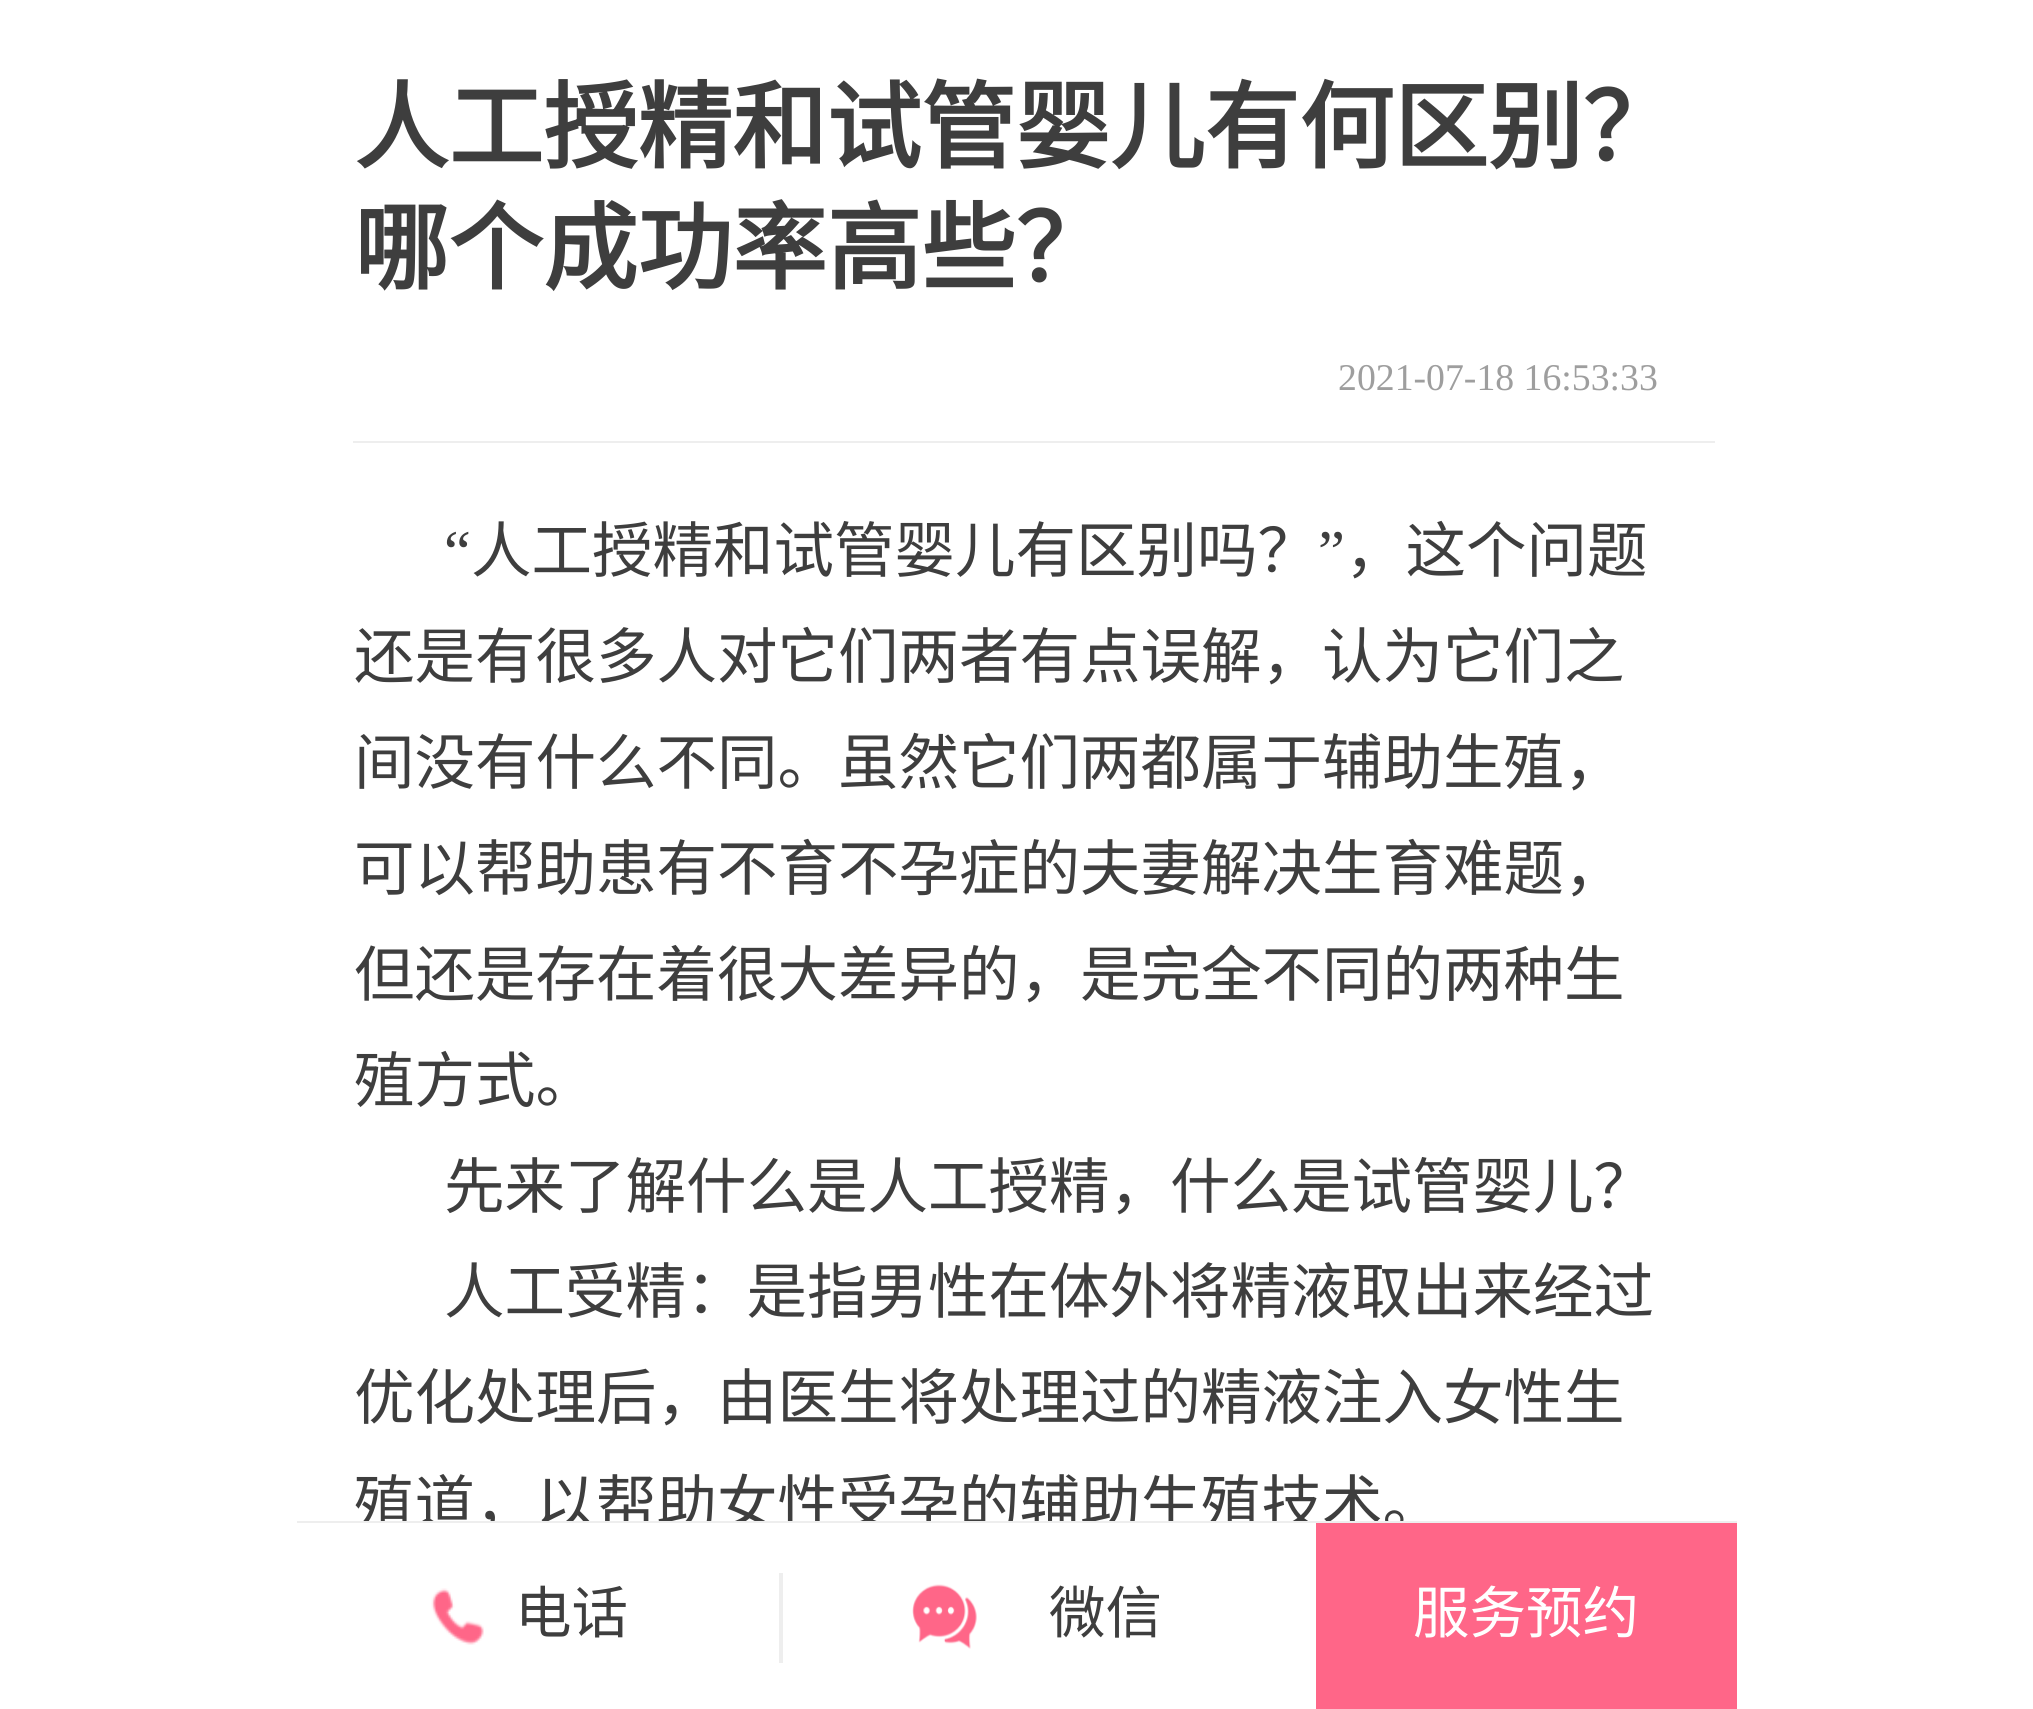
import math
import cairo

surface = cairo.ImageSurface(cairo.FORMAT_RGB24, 2033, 1709)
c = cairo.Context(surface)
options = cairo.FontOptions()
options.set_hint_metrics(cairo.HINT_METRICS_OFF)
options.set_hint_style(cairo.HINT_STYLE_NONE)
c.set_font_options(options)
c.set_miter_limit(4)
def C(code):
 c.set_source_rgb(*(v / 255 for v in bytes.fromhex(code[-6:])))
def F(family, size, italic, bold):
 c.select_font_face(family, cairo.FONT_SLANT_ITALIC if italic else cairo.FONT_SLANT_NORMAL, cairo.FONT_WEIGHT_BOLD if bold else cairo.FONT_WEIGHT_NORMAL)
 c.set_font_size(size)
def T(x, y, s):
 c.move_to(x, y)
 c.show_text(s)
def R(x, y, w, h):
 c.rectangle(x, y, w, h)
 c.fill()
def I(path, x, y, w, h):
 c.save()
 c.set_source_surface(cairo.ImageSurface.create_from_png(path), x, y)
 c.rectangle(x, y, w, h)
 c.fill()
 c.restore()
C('ffffff')
c.paint()
F('Noto Sans CJK SC',94.5,0,1)
C('3e3e3e')
T(354,161,'人工授精和试管婴儿有何区别？')
T(354,282,'哪个成功率高些？')
C('eeeeee')
R(353,441,1362,2)
F('Liberation Serif',37.75,0,0)
C('9e9e9e')
T(1338,390,'2021-07-18 16:53:33')
F('Liberation Serif',60.5,0,0)
C('3e3e3e')
T(444,572,'“')
F('Noto Sans CJK SC',60.5,0,0)
T(471,572,'人工授精和试管婴儿有区别吗？')
F('Liberation Serif',60.5,0,0)
T(1318,572,'”')
F('Noto Sans CJK SC',60.5,0,0)
T(1345,572,'，这个问题')
T(354,678,'还是有很多人对它们两者有点误解，认为它们之')
T(354,784,'间没有什么不同。虽然它们两都属于辅助生殖，')
T(354,890,'可以帮助患有不育不孕症的夫妻解决生育难题，')
T(354,996,'但还是存在着很大差异的，是完全不同的两种生')
T(354,1102,'殖方式。')
T(444,1208,'先来了解什么是人工授精，什么是试管婴儿？')
T(444,1313,'人工受精：是指男性在体外将精液取出来经过')
T(354,1419,'优化处理后，由医生将处理过的精液注入女性生')
T(354,1525,'殖道，以帮助女性受孕的辅助生殖技术。')
C('ffffff')
R(357,1523,959,9)
C('eeeeee')
R(297,1521,1440,2)
I('1.png',431,1588,53,57)
F('Noto Sans CJK SC',56.5,0,0)
C('3e3e3e')
T(515,1633,'电话')
C('eeeeee')
R(779,1573,4,90)
I('2.png',912,1584,65,65)
C('3e3e3e')
T(1049,1633,'微信')
C('ff6688')
R(1316,1523,421,186)
C('ffffff')
T(1413,1633,'服务预约')
surface.write_to_png('o.png')
